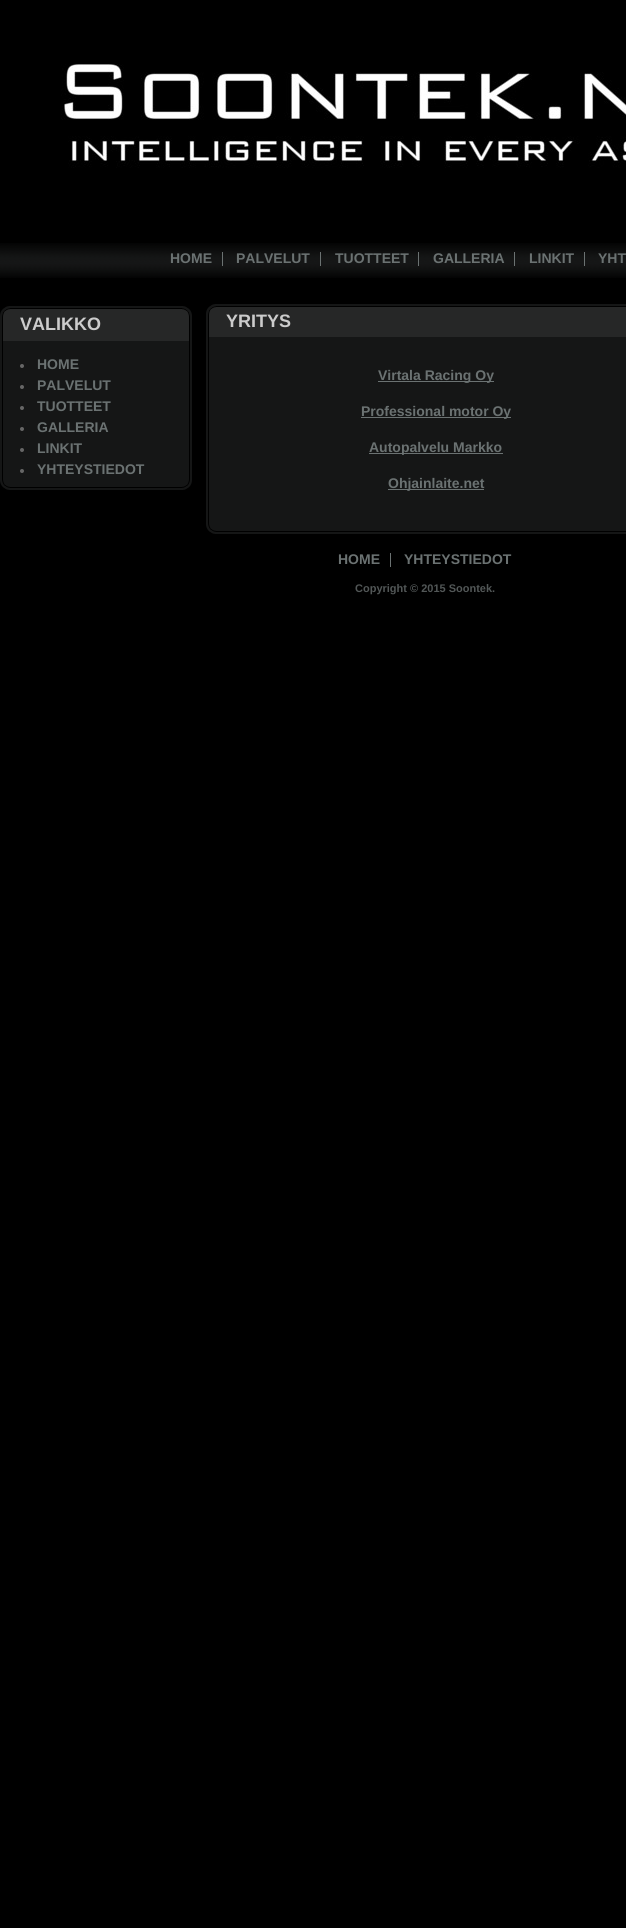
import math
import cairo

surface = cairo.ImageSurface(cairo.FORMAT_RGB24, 626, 1928)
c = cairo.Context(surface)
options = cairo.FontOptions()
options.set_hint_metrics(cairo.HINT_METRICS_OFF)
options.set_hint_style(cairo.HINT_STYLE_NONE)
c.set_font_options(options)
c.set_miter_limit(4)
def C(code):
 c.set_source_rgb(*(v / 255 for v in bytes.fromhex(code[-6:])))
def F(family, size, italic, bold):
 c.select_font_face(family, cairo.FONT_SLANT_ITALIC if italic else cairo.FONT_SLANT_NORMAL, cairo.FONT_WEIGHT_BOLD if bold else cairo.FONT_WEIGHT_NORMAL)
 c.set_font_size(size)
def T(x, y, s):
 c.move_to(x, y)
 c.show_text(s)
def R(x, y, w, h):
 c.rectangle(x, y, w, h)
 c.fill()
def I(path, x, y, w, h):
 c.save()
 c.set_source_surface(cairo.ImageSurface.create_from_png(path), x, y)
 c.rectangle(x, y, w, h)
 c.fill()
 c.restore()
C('000000')
c.paint()
I('1.png',0,243,626,35)
I('2.png',61,64,565,104)
F('Liberation Sans',14,0,1)
C('6b7272')
T(170,263,'HOME')
R(222,252,1,14)
T(236,263,'PALVELUT')
R(320,252,1,14)
T(335,263,'TUOTTEET')
R(418,252,1,14)
T(433,263,'GALLERIA')
R(514,252,1,14)
T(529,263,'LINKIT')
R(584,252,1,14)
T(598,263,'YHT')
I('3.png',0,306,192,35)
F('Liberation Sans',18,0,1)
C('cccccc')
T(20,330,'VALIKKO')
I('4.png',0,341,192,136)
C('666666')
c.arc(22,366,2,0,2 * math.pi)
c.fill()
F('Liberation Sans',14,0,1)
C('6b7272')
T(37,369,'HOME')
C('666666')
c.new_path()
c.arc(22,387,2,0,2 * math.pi)
c.fill()
C('6b7272')
T(37,390,'PALVELUT')
C('666666')
c.new_path()
c.arc(22,408,2,0,2 * math.pi)
c.fill()
C('6b7272')
T(37,411,'TUOTTEET')
C('666666')
c.new_path()
c.arc(22,429,2,0,2 * math.pi)
c.fill()
C('6b7272')
T(37,432,'GALLERIA')
C('666666')
c.new_path()
c.arc(22,450,2,0,2 * math.pi)
c.fill()
C('6b7272')
T(37,453,'LINKIT')
C('666666')
c.new_path()
c.arc(22,471,2,0,2 * math.pi)
c.fill()
C('6b7272')
T(37,474,'YHTEYSTIEDOT')
I('5.png',0,477,192,13)
I('6.png',206,304,420,33)
F('Liberation Sans',18,0,1)
C('cccccc')
T(226,327,'YRITYS')
I('7.png',206,337,420,184)
C('6b7272')
R(378,381,116,1)
F('Liberation Sans',14,0,1)
T(378,380,'Virtala Racing Oy')
R(361,417,150,1)
T(361,416,'Professional motor Oy')
R(369,453,134,1)
T(369,452,'Autopalvelu Markko')
R(388,489,96,1)
T(388,488,'Ohjainlaite.net')
I('8.png',206,521,420,13)
T(338,564,'HOME')
R(390,553,1,14)
T(404,564,'YHTEYSTIEDOT')
F('Liberation Sans',11,0,1)
C('525757')
T(355,592,'Copyright © 2015 Soontek.')
surface.write_to_png('o.png')
